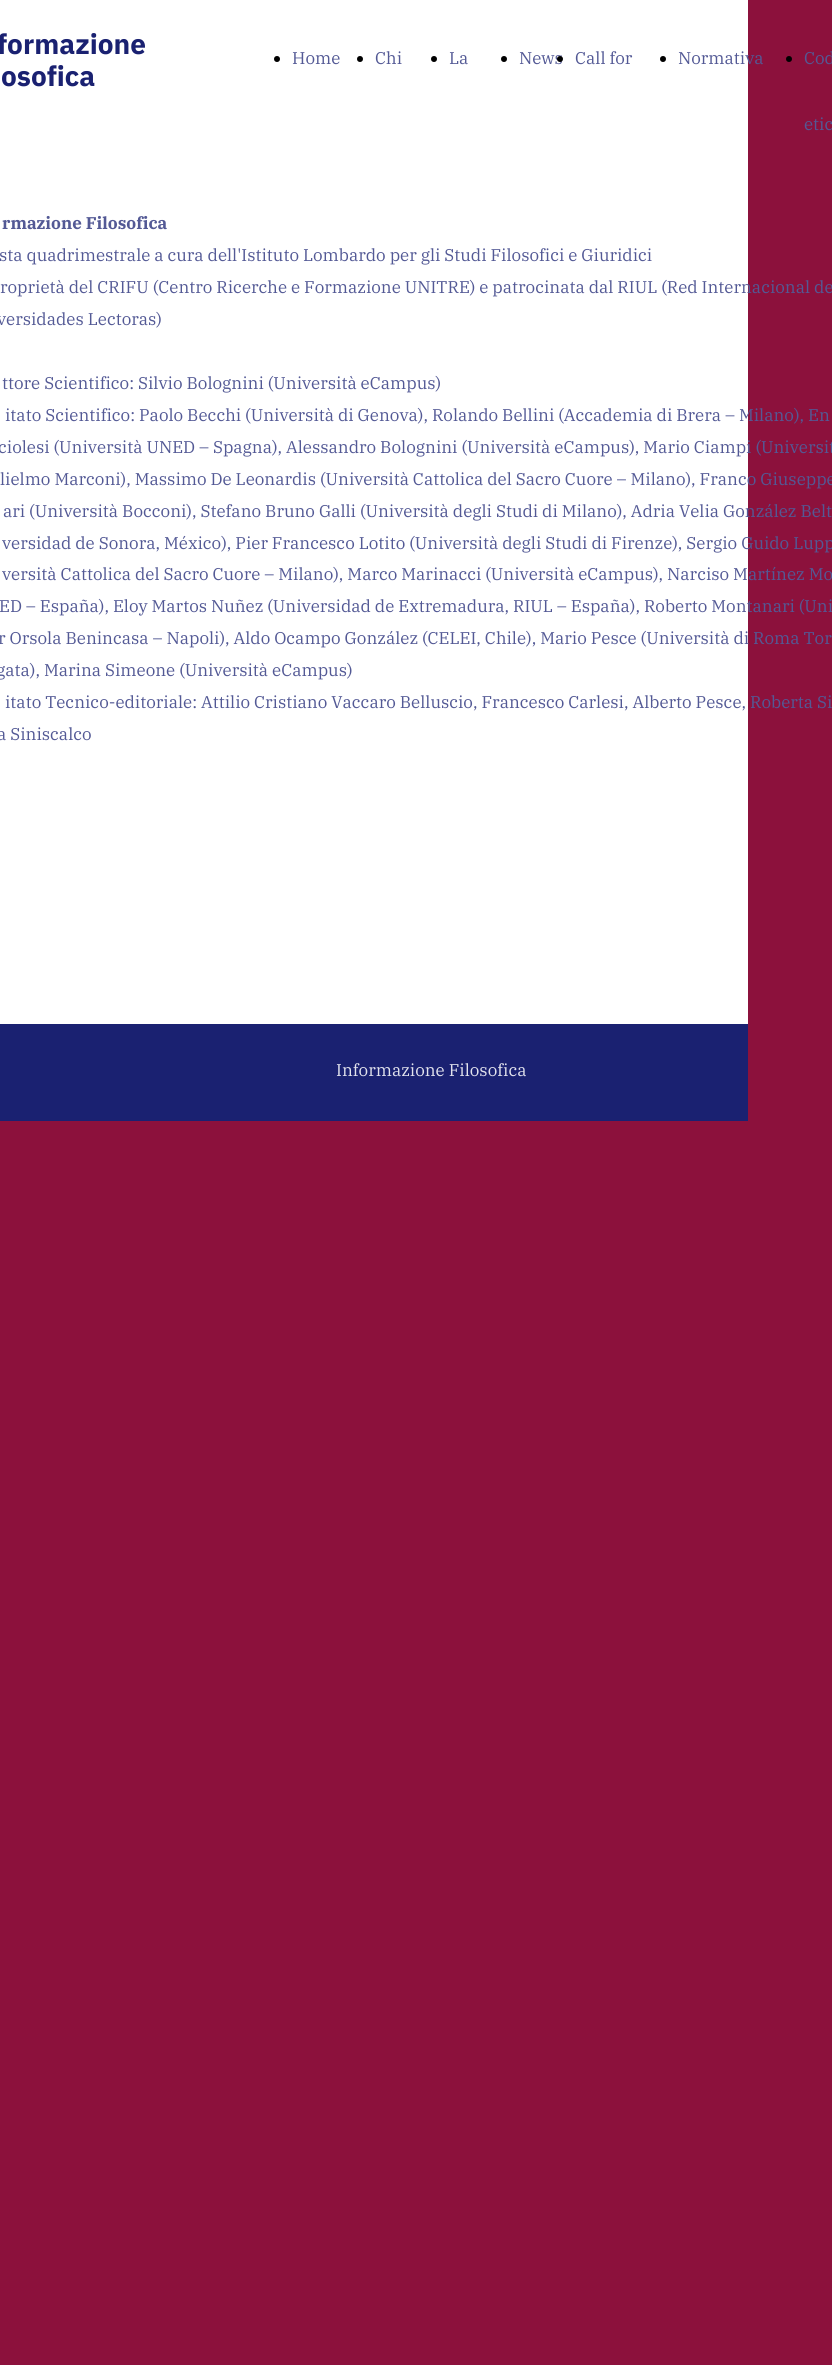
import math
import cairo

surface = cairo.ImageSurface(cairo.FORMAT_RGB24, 832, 2365)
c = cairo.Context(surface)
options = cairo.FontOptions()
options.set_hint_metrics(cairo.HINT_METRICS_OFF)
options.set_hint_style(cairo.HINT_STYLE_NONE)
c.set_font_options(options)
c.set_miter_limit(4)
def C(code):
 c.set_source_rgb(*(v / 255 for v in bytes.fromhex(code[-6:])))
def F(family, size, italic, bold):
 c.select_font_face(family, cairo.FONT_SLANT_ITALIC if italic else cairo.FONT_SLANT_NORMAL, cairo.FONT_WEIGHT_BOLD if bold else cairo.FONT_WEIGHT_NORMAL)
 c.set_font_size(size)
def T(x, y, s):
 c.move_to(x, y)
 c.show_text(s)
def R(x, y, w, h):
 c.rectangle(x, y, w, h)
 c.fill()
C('8c113c')
c.paint()
C('ffffff')
R(0,0,748,1024)
F('IBM Plex Sans',28,0,1)
C('1a2171')
T(-3,54,'formazione')
T(1,86,'osofica')
C('000000')
c.new_path()
c.arc(277,59,3,0,2 * math.pi)
c.fill()
F('IBM Plex Serif',17,0,0)
C('535995')
T(292,64,'Home')
C('000000')
c.new_path()
c.arc(360,59,3,0,2 * math.pi)
c.fill()
C('535995')
T(375,64,'Chi')
C('000000')
c.new_path()
c.arc(434,59,3,0,2 * math.pi)
c.fill()
C('535995')
T(449,64,'La')
C('000000')
c.new_path()
c.arc(504,59,3,0,2 * math.pi)
c.fill()
C('535995')
T(519,64,'News')
C('000000')
c.new_path()
c.arc(560,59,3,0,2 * math.pi)
c.fill()
C('535995')
T(575,64,'Call for')
C('000000')
c.new_path()
c.arc(663,59,3,0,2 * math.pi)
c.fill()
C('535995')
T(678,64,'Normativa')
C('000000')
c.new_path()
c.arc(789,59,3,0,2 * math.pi)
c.fill()
C('535995')
T(804,64,'Cod')
T(804,130,'etic')
F('IBM Plex Serif',17,0,1)
T(2,229,'rmazione Filosofica')
F('IBM Plex Serif',17,0,0)
T(-1,261,'sta quadrimestrale a cura dell\'Istituto Lombardo per gli Studi Filosofici e Giuridici')
T(0,293,'roprietà del CRIFU (Centro Ricerche e Formazione UNITRE) e patrocinata dal RIUL (Red Internacional de')
T(-3,325,'versidades Lectoras)')
T(2,389,'ttore Scientifico: Silvio Bolognini (Università eCampus)')
T(5,421,'itato Scientifico: Paolo Becchi (Università di Genova), Rolando Bellini (Accademia di Brera – Milano), En')
T(-2,453,'ciolesi (Università UNED – Spagna), Alessandro Bolognini (Università eCampus), Mario Ciampi (Universit')
T(0,485,'lielmo Marconi), Massimo De Leonardis (Università Cattolica del Sacro Cuore – Milano), Franco Giuseppe')
T(3,517,'ari (Università Bocconi), Stefano Bruno Galli (Università degli Studi di Milano), Adria Velia González Belt')
T(2,549,'versidad de Sonora, México), Pier Francesco Lotito (Università degli Studi di Firenze), Sergio Guido Lupp')
T(2,580,'versità Cattolica del Sacro Cuore – Milano), Marco Marinacci (Università eCampus), Narciso Martínez Mo')
T(-1,612,'ED – España), Eloy Martos Nuñez (Universidad de Extremadura, RIUL – España), Roberto Montanari (Uni')
T(-2,644,'r Orsola Benincasa – Napoli), Aldo Ocampo González (CELEI, Chile), Mario Pesce (Università di Roma Tor')
T(-4,676,'gata), Marina Simeone (Università eCampus)')
T(5,708,'itato Tecnico-editoriale: Attilio Cristiano Vaccaro Belluscio, Francesco Carlesi, Alberto Pesce, Roberta Si')
T(-3,740,'a Siniscalco')
C('1a2171')
R(0,1024,748,97)
C('e2e3ed')
T(336,1076,'Informazione Filosofica')
surface.write_to_png('o.png')
